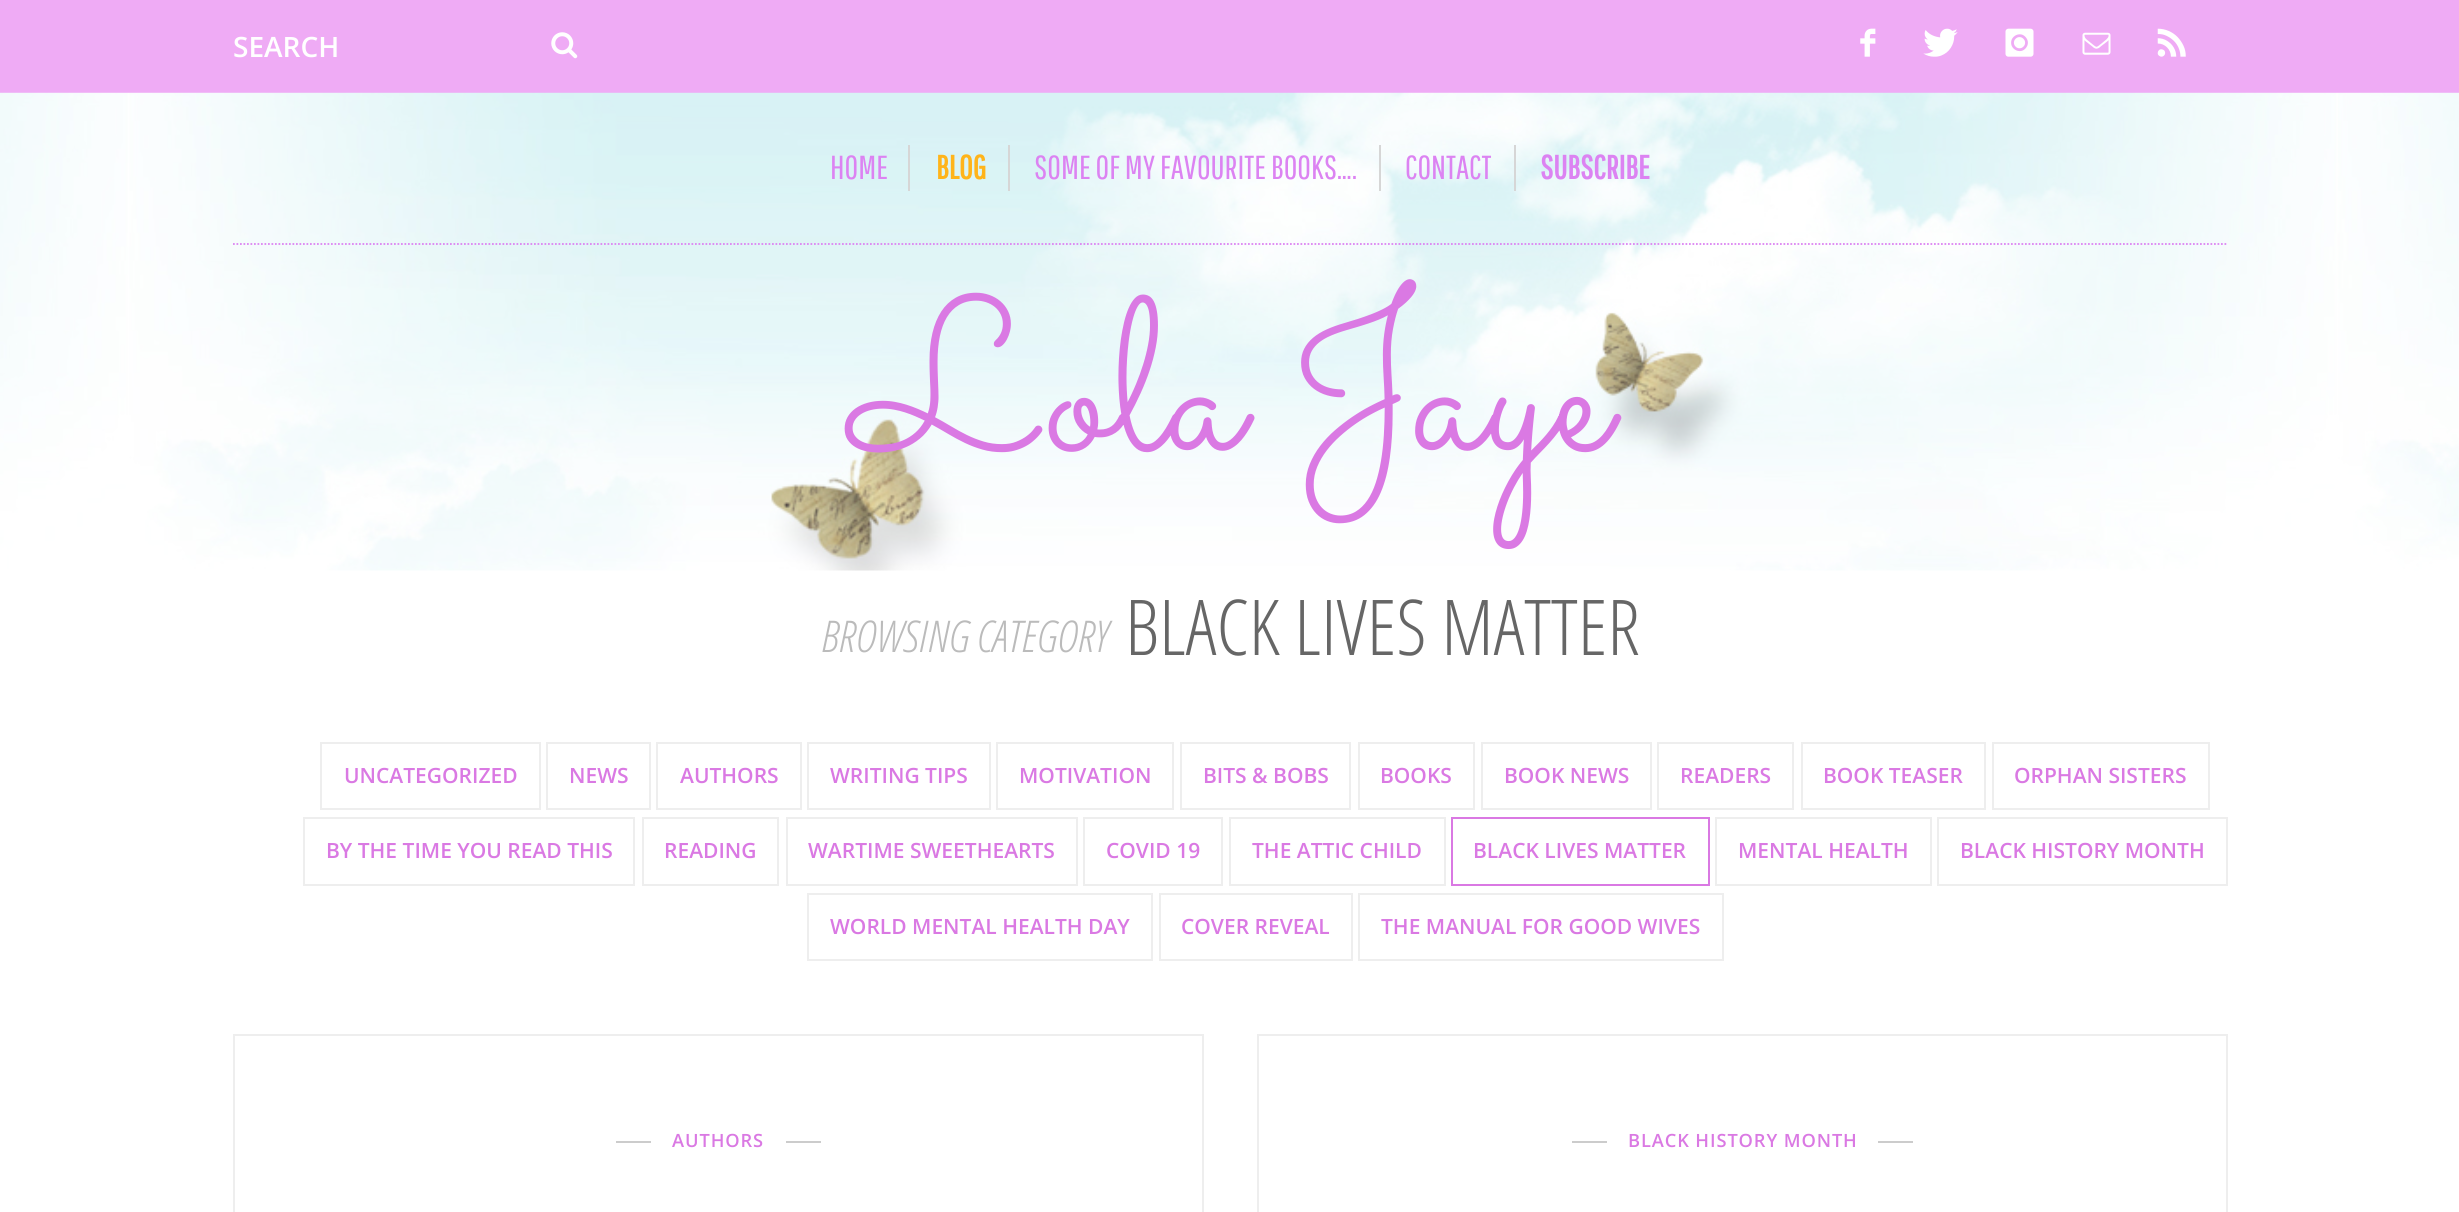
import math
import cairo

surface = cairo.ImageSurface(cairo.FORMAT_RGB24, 2459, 1212)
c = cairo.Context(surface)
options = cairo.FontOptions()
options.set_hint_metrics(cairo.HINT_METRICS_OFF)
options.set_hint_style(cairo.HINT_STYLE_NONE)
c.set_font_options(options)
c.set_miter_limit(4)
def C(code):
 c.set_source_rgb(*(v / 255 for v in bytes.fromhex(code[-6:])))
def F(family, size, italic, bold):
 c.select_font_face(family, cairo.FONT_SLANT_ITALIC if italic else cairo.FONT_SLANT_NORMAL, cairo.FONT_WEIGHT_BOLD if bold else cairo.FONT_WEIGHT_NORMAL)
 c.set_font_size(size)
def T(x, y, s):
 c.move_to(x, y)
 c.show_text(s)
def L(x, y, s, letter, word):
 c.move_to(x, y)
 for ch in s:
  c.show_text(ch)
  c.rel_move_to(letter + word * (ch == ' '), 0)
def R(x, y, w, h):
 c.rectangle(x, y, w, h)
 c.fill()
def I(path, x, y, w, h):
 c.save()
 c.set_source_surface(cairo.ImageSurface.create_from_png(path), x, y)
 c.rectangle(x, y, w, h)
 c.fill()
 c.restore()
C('ffffff')
c.paint()
C('efabf5')
R(0,0,2459,93)
F('Open Sans SemiBold',28,0,0)
C('ffffff')
T(233,57,'SEARCH')
I('1.png',551,32,27,27)
I('2.png',1860,28,16,29)
I('3.png',1923,28,35,29)
I('4.png',2005,28,29,29)
I('5.png',2082,32,29,23)
I('6.png',2157,28,29,29)
I('7.png',0,92,2459,479)
c.new_path()
c.move_to(233,244)
c.line_to(2228,244)
C('dc83f2')
c.set_line_width(1.8)
c.set_dash([1.75,1.75])
c.stroke()
C('d6d6d6')
R(908,145,2,46)
F('Pathway Gothic One',33.25,0,0)
C('dc83f2')
T(830,179,'HOME')
C('d6d6d6')
R(1008,145,2,46)
F('Pathway Gothic One',33.25,0,1)
C('ffb41a')
T(936,179,'BLOG')
C('d6d6d6')
R(1379,145,2,46)
F('Pathway Gothic One',33.25,0,0)
C('dc83f2')
T(1034,179,'SOME OF MY FAVOURITE BOOKS….')
C('d6d6d6')
R(1514,145,2,46)
C('dc83f2')
T(1405,179,'CONTACT')
F('Pathway Gothic One',33.25,0,1)
T(1540,179,'SUBSCRIBE')
F('Sacramento',217,0,0)
C('da79e3')
T(851,449,'Lola Jaye')
F('Open Sans Condensed Light',43.75,1,0)
C('bbbbbb')
T(821,652,'BROWSING CATEGORY')
F('Open Sans Condensed Light',77,0,0)
C('666666')
T(1125,655,'BLACK LIVES MATTER')
c.rectangle(321,743,219,66)
C('eeeeee')
c.set_line_width(2)
c.set_dash([])
c.stroke()
F('Open Sans SemiBold',21,0,0)
C('da79e3')
T(344,783,'UNCATEGORIZED')
c.rectangle(547,743,103,66)
C('eeeeee')
c.stroke()
C('da79e3')
T(569,783,'NEWS')
c.rectangle(657,743,144,66)
C('eeeeee')
c.stroke()
C('da79e3')
T(680,783,'AUTHORS')
c.rectangle(808,743,182,66)
C('eeeeee')
c.stroke()
C('da79e3')
T(830,783,'WRITING TIPS')
c.rectangle(997,743,176,66)
C('eeeeee')
c.stroke()
C('da79e3')
T(1019,783,'MOTIVATION')
c.rectangle(1181,743,169,66)
C('eeeeee')
c.stroke()
C('da79e3')
T(1203,783,'BITS & BOBS')
c.rectangle(1359,743,115,66)
C('eeeeee')
c.stroke()
C('da79e3')
T(1380,783,'BOOKS')
c.rectangle(1482,743,169,66)
C('eeeeee')
c.stroke()
C('da79e3')
T(1504,783,'BOOK NEWS')
c.rectangle(1658,743,135,66)
C('eeeeee')
c.stroke()
C('da79e3')
T(1680,783,'READERS')
c.rectangle(1802,743,183,66)
C('eeeeee')
c.stroke()
C('da79e3')
T(1823,783,'BOOK TEASER')
c.rectangle(1993,743,216,66)
C('eeeeee')
c.stroke()
C('da79e3')
T(2014,783,'ORPHAN SISTERS')
c.rectangle(304,818,330,67)
C('eeeeee')
c.stroke()
C('da79e3')
T(326,858,'BY THE TIME YOU READ THIS')
c.rectangle(643,818,135,67)
C('eeeeee')
c.stroke()
C('da79e3')
T(664,858,'READING')
c.rectangle(787,818,290,67)
C('eeeeee')
c.stroke()
C('da79e3')
T(808,858,'WARTIME SWEETHEARTS')
c.rectangle(1084,818,138,67)
C('eeeeee')
c.stroke()
C('da79e3')
T(1106,858,'COVID 19')
c.rectangle(1230,818,215,67)
C('eeeeee')
c.stroke()
C('da79e3')
T(1252,858,'THE ATTIC CHILD')
c.rectangle(1452,818,257,67)
c.stroke()
T(1473,858,'BLACK LIVES MATTER')
c.rectangle(1716,818,215,67)
C('eeeeee')
c.stroke()
C('da79e3')
T(1738,858,'MENTAL HEALTH')
c.rectangle(1938,818,289,67)
C('eeeeee')
c.stroke()
C('da79e3')
T(1960,858,'BLACK HISTORY MONTH')
c.rectangle(808,894,344,66)
C('eeeeee')
c.stroke()
C('da79e3')
T(830,934,'WORLD MENTAL HEALTH DAY')
c.rectangle(1160,894,192,66)
C('eeeeee')
c.stroke()
C('da79e3')
T(1181,934,'COVER REVEAL')
c.rectangle(1359,894,364,66)
C('eeeeee')
c.stroke()
C('da79e3')
T(1381,934,'THE MANUAL FOR GOOD WIVES')
c.rectangle(234,1035,969,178)
C('eeeeee')
c.stroke()
C('cccccc')
R(616,1141,35,2)
F('Open Sans SemiBold',18.25,0,0)
C('da79e3')
L(672,1147,'AUTHORS',.9,0)
C('cccccc')
R(786,1141,35,2)
c.rectangle(1258,1035,969,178)
C('eeeeee')
c.stroke()
C('cccccc')
R(1572,1141,35,2)
C('da79e3')
L(1628,1147,'BLACK HISTORY MONTH',.9,0)
C('cccccc')
R(1878,1141,35,2)
surface.write_to_png('o.png')
